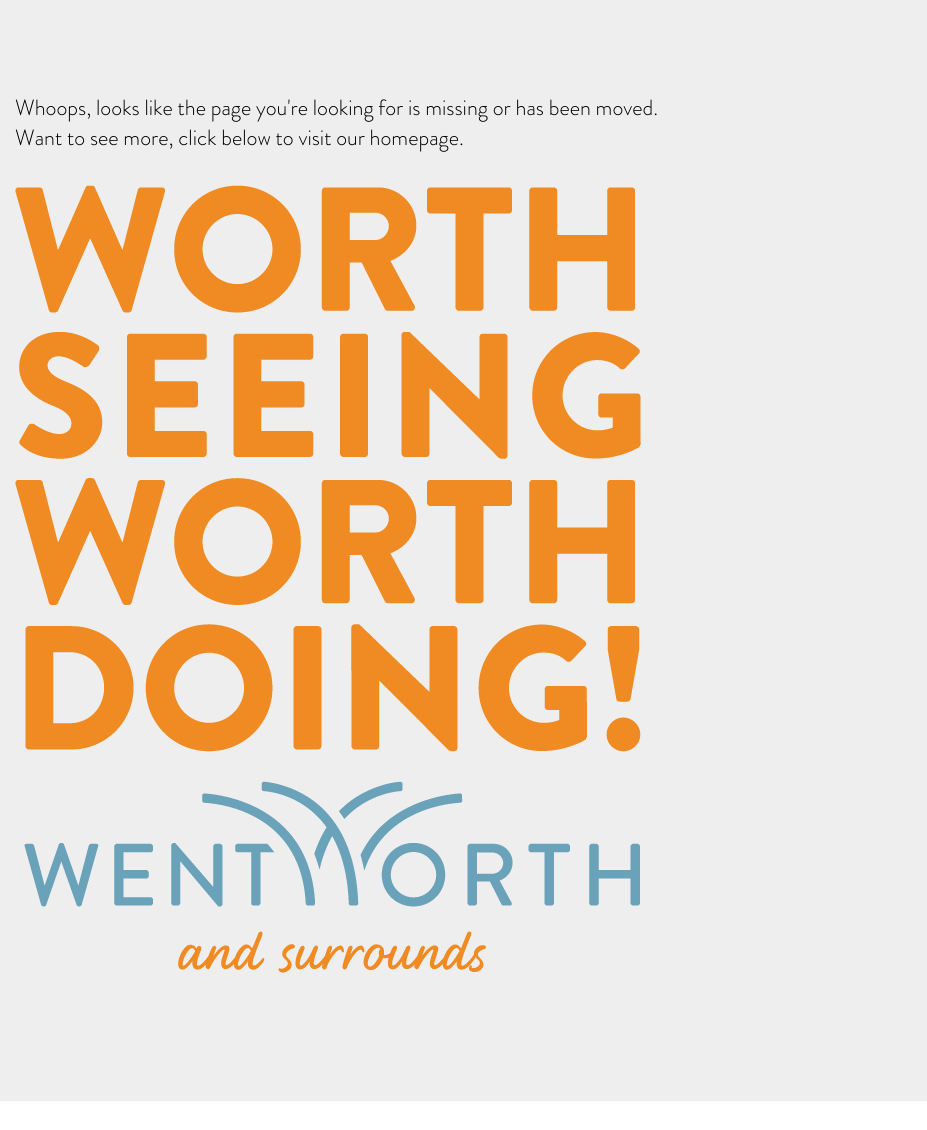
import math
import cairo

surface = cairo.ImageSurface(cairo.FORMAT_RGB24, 927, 1130)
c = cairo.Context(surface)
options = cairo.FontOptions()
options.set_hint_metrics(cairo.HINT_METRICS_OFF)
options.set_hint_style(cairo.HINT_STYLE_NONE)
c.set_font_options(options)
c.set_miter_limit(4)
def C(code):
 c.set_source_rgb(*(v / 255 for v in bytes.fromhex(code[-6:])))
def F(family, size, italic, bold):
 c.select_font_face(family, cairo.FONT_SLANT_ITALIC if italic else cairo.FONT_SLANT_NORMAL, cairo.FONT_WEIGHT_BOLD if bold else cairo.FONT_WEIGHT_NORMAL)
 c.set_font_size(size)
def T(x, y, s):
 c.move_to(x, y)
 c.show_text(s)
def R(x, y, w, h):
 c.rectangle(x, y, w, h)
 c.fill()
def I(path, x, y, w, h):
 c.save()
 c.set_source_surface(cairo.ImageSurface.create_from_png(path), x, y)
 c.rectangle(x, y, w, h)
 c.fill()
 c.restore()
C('ffffff')
c.paint()
C('eeeeee')
R(0,0,927,1101)
F('Brandon Grotesque Light',22,0,0)
C('000000')
T(15,115,'Whoops, looks like the page you\'re looking for is missing or has been moved.')
T(15,145,'Want to see more, click below to visit our homepage.')
I('1.png',15,185,626,788)
surface.write_to_png('o.png')
